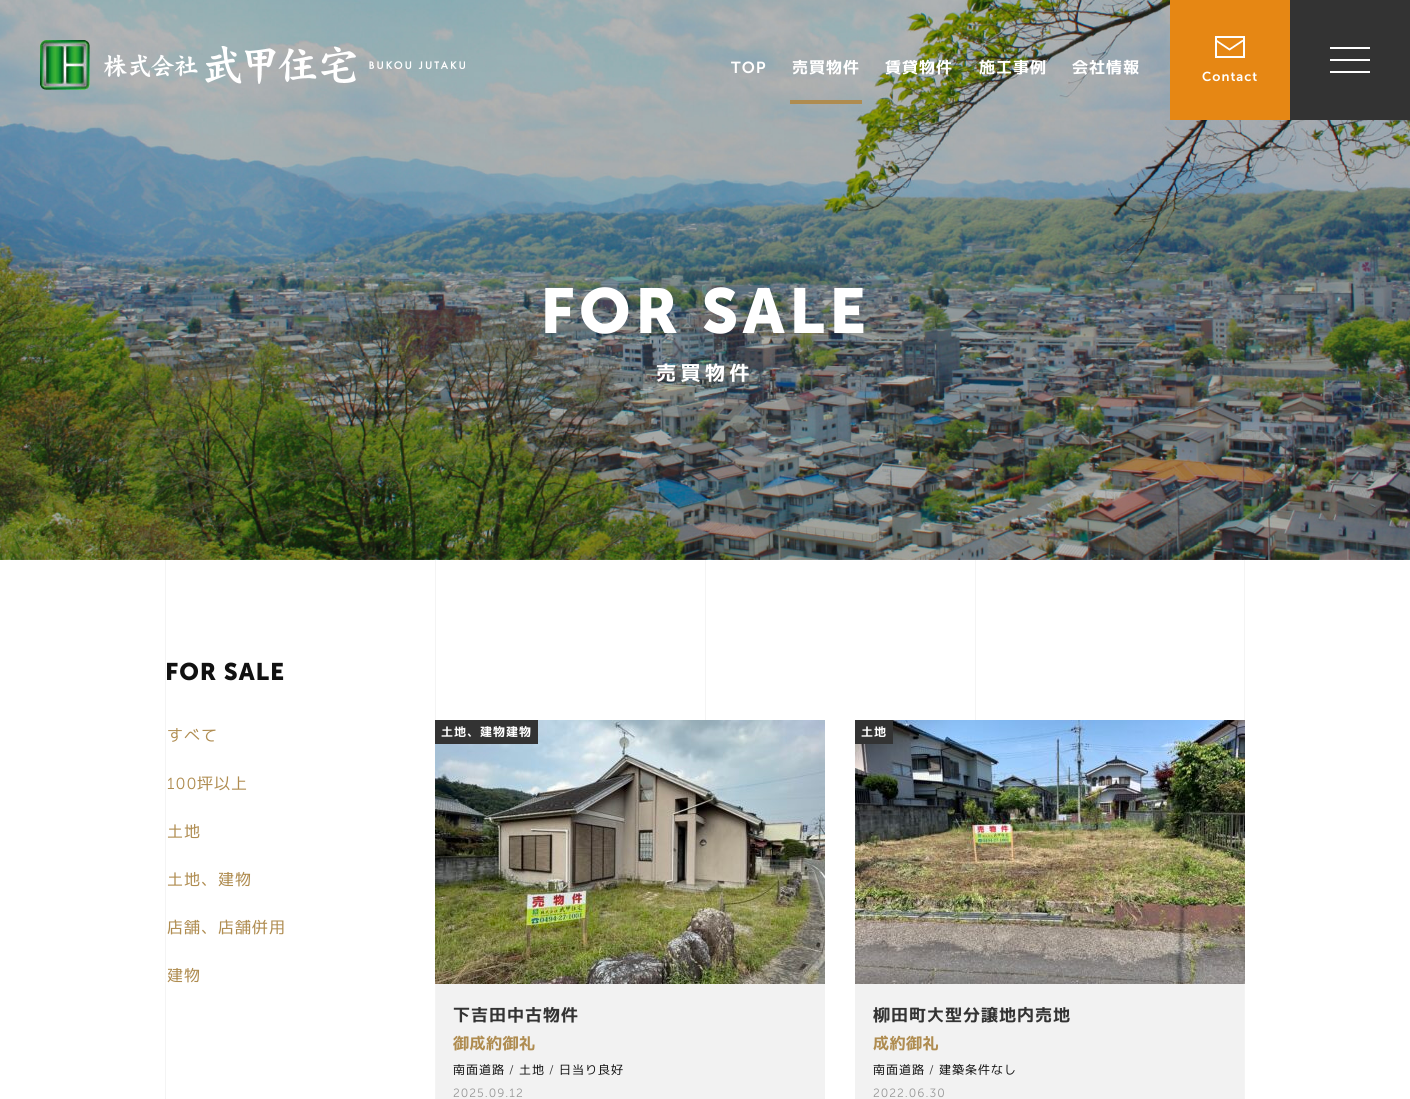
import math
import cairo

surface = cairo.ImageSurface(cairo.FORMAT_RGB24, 1410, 1099)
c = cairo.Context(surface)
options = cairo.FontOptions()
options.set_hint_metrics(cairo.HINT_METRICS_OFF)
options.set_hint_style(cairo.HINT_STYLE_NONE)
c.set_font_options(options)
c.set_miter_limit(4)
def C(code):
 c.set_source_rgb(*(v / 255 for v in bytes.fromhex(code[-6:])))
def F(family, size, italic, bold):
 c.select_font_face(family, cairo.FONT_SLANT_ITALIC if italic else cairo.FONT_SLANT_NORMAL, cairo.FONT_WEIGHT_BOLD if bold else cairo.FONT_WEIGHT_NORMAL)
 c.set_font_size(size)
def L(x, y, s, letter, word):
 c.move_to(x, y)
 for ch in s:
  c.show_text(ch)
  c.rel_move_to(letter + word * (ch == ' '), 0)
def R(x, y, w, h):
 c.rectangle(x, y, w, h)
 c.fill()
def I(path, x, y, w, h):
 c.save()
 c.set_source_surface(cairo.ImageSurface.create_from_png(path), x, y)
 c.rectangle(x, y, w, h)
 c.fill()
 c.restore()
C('ffffff')
c.paint()
I('2.png',165,559,1080,540)
I('3.png',0,0,1410,560)
I('1.png',40,40,425,50)
F('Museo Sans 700 SemiBold',16,0,0)
C('ffffff')
L(731,73,'TOP',1,0)
C('af8c50')
R(790,100,72,4)
F('M PLUS 1p',16,0,1)
C('ffffff')
L(792,73,'売買物件',1,0)
L(885,73,'賃貸物件',1,0)
L(979,73,'施工事例',1,0)
L(1072,73,'会社情報',1,0)
C('e68714')
R(1170,0,120,120)
c.rectangle(1216,37,28,20)
C('ffffff')
c.stroke()
c.new_path()
c.move_to(1243,40.5)
c.line_to(1229.5,49.5)
c.line_to(1216,40.5)
c.set_line_width(1.8)
c.stroke()
F('Museo Sans 700 SemiBold',13,0,0)
L(1202,81,'Contact',1,0)
C('333333')
R(1290,0,120,120)
C('ffffff')
R(1330,59,40,2)
R(1330,47,40,2)
R(1330,71,40,2)
F('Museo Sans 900',63,0,1)
L(540,333,'FOR SALE',4.5,0)
F('M PLUS 1p',20,0,1)
L(656,380,'売買物件',4.5,0)
F('Museo Sans 900',24,0,1)
C('111111')
L(165,680,'FOR SALE',1,0)
F('M PLUS 1p',16,0,0)
C('af8c50')
L(167,741,'すべて',1,0)
F('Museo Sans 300 Light',16,0,0)
L(167,789,'100',1,0)
F('M PLUS 1p',16,0,0)
L(197,789,'坪以上',1,0)
L(167,837,'土地',1,0)
L(167,885,'土地、建物',1,0)
L(167,933,'店舗、店舗併用',1,0)
L(167,981,'建物',1,0)
C('f2f2f2')
R(436,984,389,115)
I('4.png',435,720,390,264)
C('333333')
R(435,720,103,24)
F('M PLUS 1p',12,0,1)
C('ffffff')
L(441,736,'土地、建物建物',1,0)
F('M PLUS 1p',17,0,1)
C('333333')
L(453,1021,'下吉田中古物件',1,0)
F('M PLUS 1p',16,0,1)
C('af8c50')
L(453,1049,'御成約御礼',.5,0)
F('M PLUS 1p',12,0,0)
C('111111')
L(453,1074,'南面道路',1,0)
F('Museo Sans 300 Light',12,0,0)
C('333333')
L(509,1074,'/',1,0)
F('M PLUS 1p',12,0,0)
C('111111')
L(519,1074,'土地',1,0)
F('Museo Sans 300 Light',12,0,0)
C('333333')
L(549,1074,'/',1,0)
F('M PLUS 1p',12,0,0)
C('111111')
L(559,1074,'日当り良好',1,0)
F('Museo Sans 300 Light',12,0,0)
C('999999')
L(453,1097,'2025.09.12',1,0)
C('f2f2f2')
R(855,984,389,115)
I('5.png',855,720,390,264)
C('333333')
R(855,720,38,24)
F('M PLUS 1p',12,0,1)
C('ffffff')
L(861,736,'土地',1,0)
F('M PLUS 1p',17,0,1)
C('333333')
L(873,1021,'柳田町大型分譲地内売地',1,0)
F('M PLUS 1p',16,0,1)
C('af8c50')
L(873,1049,'成約御礼',.5,0)
F('M PLUS 1p',12,0,0)
C('111111')
L(873,1074,'南面道路',1,0)
F('Museo Sans 300 Light',12,0,0)
C('333333')
L(929,1074,'/',1,0)
F('M PLUS 1p',12,0,0)
C('111111')
L(939,1074,'建築条件なし',1,0)
F('Museo Sans 300 Light',12,0,0)
C('999999')
L(873,1097,'2022.06.30',1,0)
surface.write_to_png('o.png')
